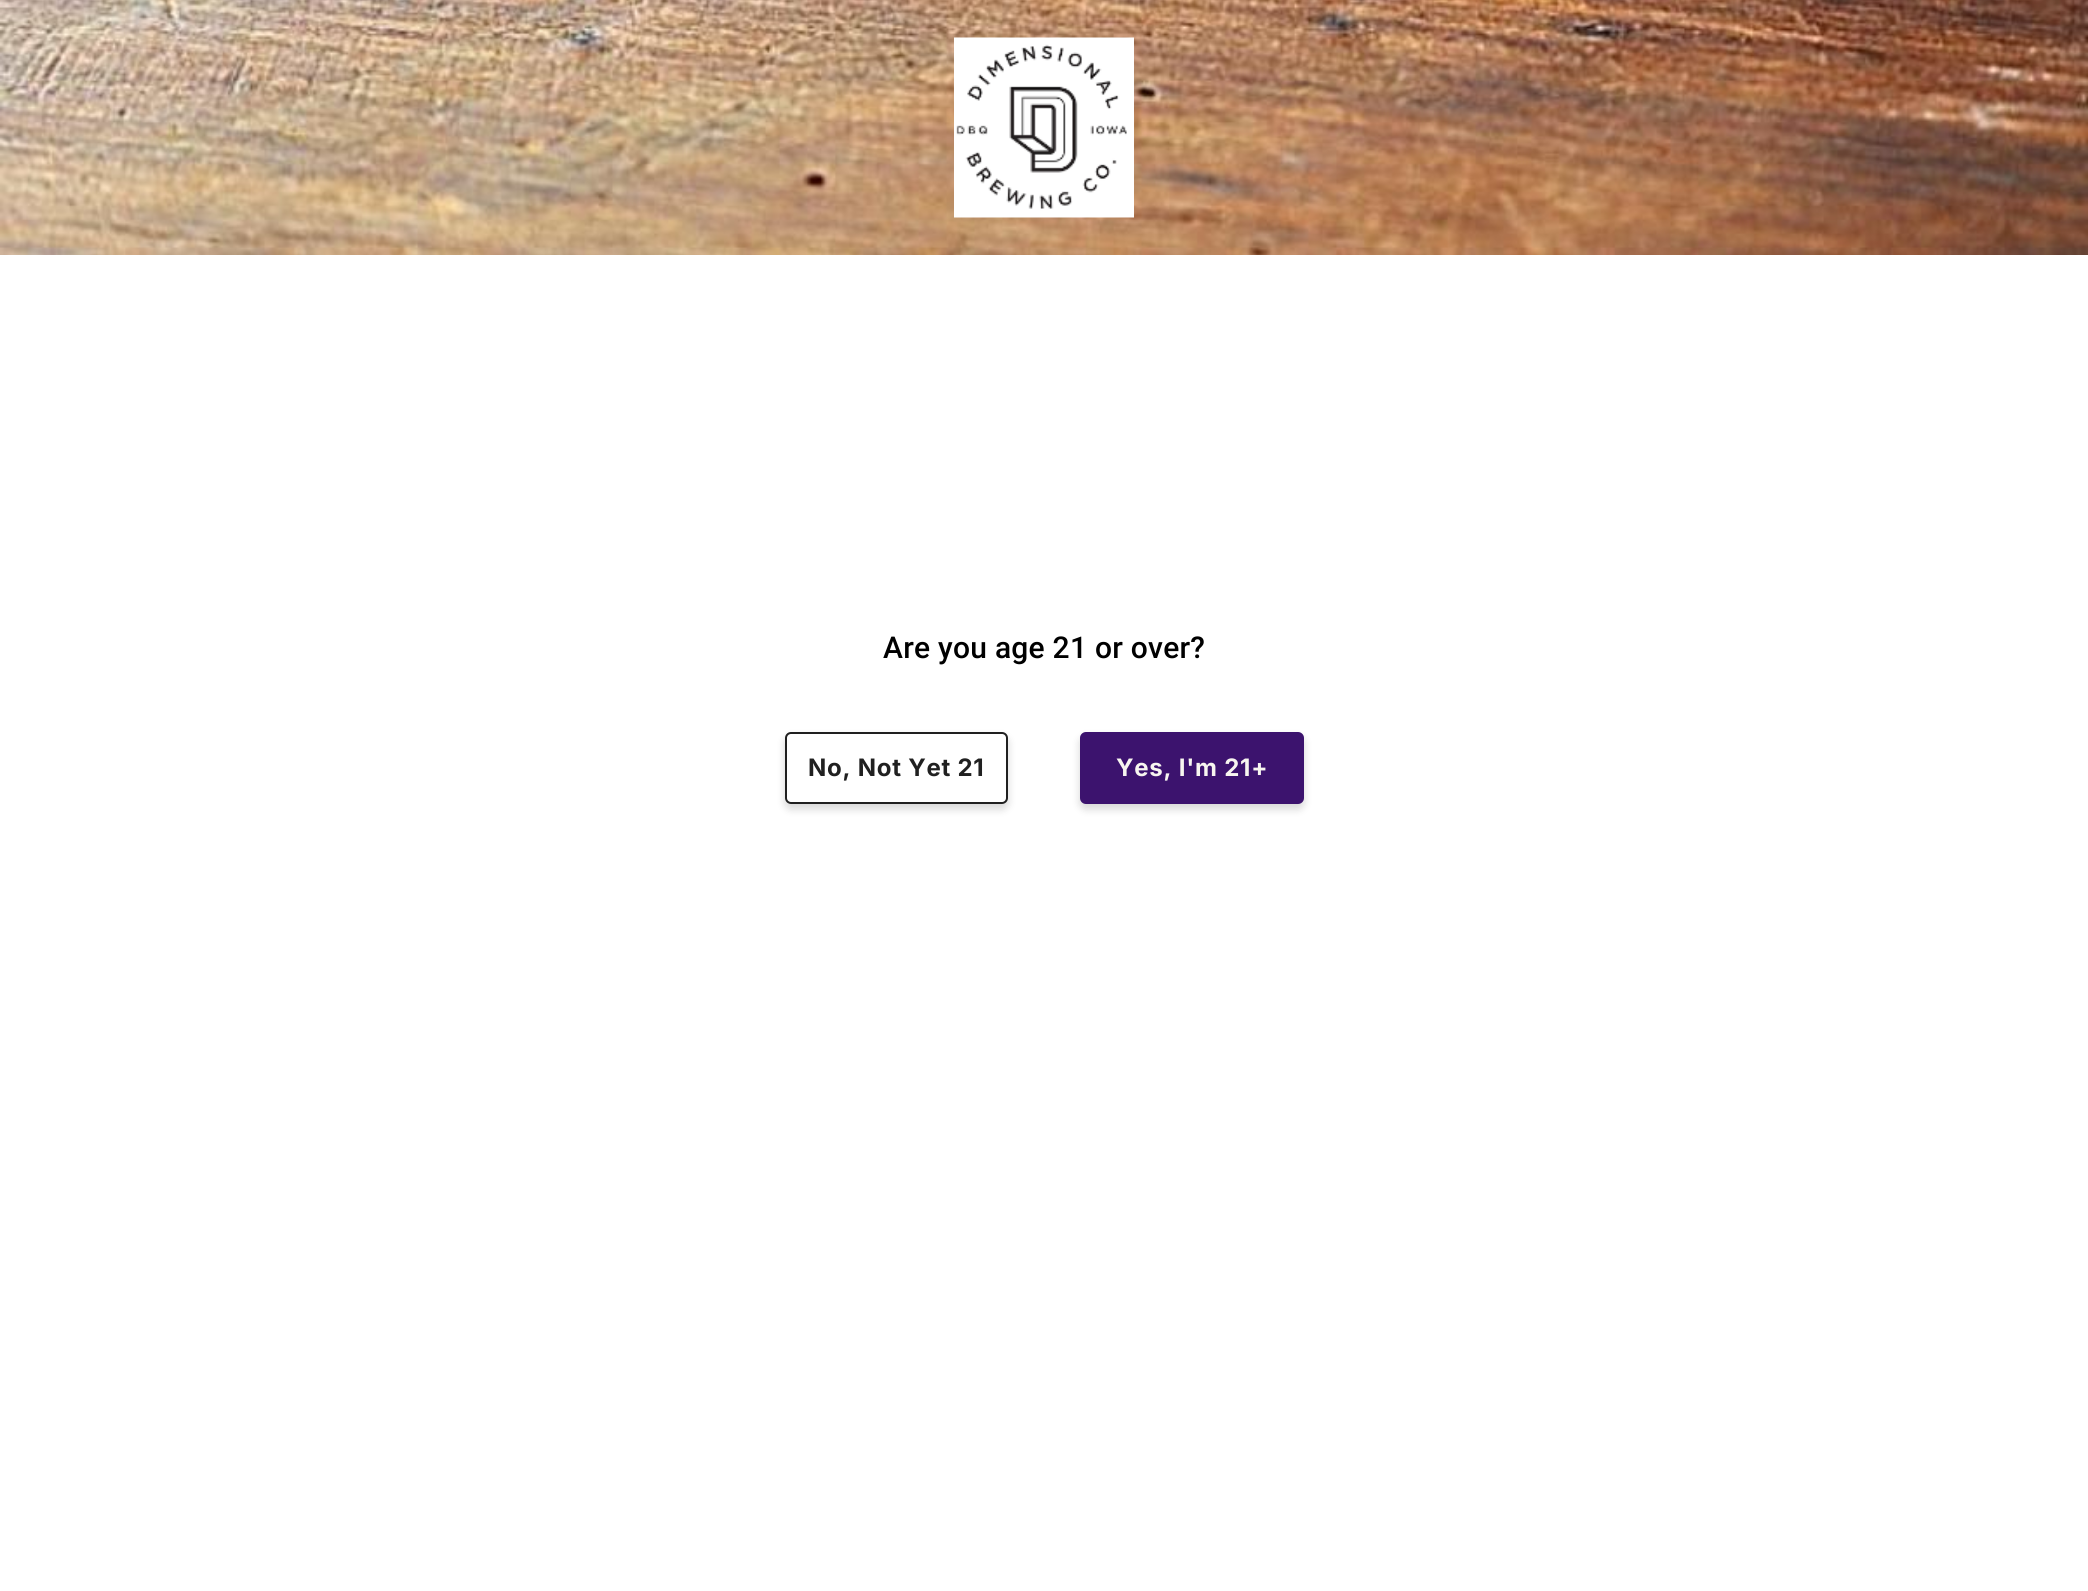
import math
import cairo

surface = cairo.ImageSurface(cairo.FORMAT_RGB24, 2088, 1591)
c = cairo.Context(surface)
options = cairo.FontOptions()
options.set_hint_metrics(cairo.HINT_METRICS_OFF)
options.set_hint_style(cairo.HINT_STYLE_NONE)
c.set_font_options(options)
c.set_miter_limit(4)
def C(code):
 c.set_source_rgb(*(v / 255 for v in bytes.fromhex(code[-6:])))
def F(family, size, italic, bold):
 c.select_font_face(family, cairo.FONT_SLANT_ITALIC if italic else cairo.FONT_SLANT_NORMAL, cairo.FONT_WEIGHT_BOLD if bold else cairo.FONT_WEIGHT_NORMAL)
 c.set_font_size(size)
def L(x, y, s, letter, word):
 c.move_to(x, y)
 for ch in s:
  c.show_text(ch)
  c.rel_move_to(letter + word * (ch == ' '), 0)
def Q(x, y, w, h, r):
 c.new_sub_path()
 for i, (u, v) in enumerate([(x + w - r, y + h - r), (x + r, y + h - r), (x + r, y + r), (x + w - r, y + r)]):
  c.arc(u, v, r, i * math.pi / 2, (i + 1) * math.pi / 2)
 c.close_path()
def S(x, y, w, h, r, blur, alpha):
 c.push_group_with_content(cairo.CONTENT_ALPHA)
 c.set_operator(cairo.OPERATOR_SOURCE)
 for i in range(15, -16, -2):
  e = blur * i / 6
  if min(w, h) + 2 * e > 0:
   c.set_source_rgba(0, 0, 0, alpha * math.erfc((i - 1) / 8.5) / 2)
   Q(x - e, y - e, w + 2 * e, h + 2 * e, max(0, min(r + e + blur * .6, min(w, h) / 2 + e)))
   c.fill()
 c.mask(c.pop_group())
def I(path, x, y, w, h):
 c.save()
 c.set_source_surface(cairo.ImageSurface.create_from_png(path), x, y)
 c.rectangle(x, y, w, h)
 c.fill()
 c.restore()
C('ffffff')
c.paint()
I('1.png',0,0,2088,255)
I('2.png',954,37,180,181)
F('Roboto Medium',30,0,0)
C('000000')
L(883,658,'Are you age 21 or over?',.25,0)
c.save()
c.set_fill_rule(cairo.FILL_RULE_EVEN_ODD)
c.new_path()
c.move_to(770,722)
c.line_to(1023,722)
c.line_to(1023,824)
c.line_to(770,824)
c.close_path()
c.move_to(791,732)
c.line_to(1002,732)
c.curve_to(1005.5,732,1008,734.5,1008,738)
c.line_to(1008,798)
c.curve_to(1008,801.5,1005.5,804,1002,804)
c.line_to(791,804)
c.curve_to(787.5,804,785,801.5,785,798)
c.line_to(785,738)
c.curve_to(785,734.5,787.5,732,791,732)
c.close_path()
c.clip()
C('000000')
S(785,737,223,72,6,4.5,.16)
c.restore()
Q(786,733,221,70,5)
C('202020')
c.stroke()
F('Inter',24,0,1)
L(808,776,'No, Not Yet 21',.75,0)
C('000000')
S(1080,737,224,72,6,4.5,.16)
C('3c136e')
Q(1080,732,224,72,6)
c.fill()
C('f8f6f0')
L(1116,776,'Yes, I\'m 21+',.75,0)
surface.write_to_png('o.png')
